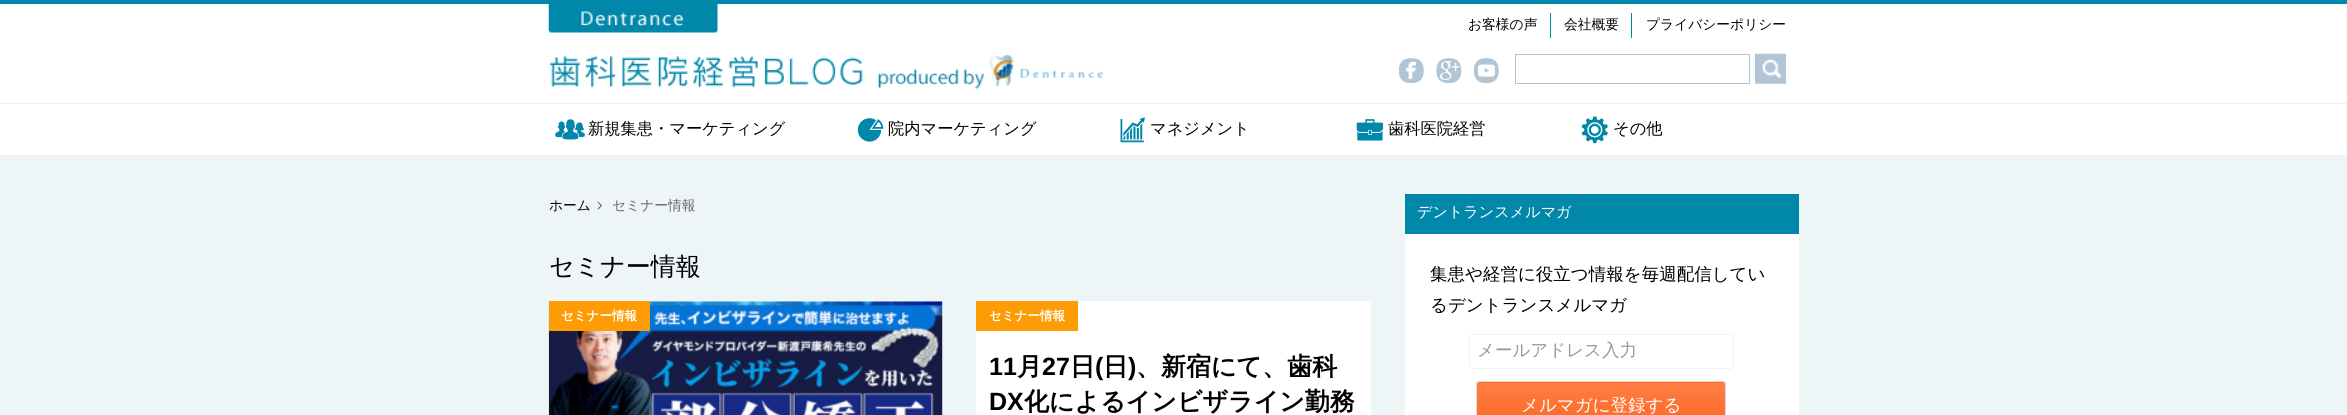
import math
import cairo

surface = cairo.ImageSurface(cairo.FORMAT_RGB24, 2347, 415)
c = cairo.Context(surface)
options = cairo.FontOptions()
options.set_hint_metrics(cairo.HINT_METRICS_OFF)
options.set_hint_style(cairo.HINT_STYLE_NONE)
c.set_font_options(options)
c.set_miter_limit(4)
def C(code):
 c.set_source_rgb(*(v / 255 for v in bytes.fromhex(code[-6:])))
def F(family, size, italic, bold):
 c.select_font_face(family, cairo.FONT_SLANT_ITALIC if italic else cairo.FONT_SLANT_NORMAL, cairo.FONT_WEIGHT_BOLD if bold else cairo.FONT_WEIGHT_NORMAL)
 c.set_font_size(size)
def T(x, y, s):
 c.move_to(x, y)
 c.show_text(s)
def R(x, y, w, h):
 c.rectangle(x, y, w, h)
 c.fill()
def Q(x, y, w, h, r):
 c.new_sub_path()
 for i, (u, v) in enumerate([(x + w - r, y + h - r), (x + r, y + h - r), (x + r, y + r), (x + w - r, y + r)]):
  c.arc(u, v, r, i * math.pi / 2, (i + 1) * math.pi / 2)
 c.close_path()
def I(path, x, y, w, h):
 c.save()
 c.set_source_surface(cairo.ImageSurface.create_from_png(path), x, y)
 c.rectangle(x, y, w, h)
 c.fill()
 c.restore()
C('eef5f7')
c.paint()
C('ffffff')
R(0,4,2347,151)
C('0187a9')
R(0,0,2347,4)
I('1.png',548,4,170,29)
F('WenQuanYi Zen Hei Medium',13.75,0,0)
C('000000')
T(1468,29,'お客様の声')
C('0187a9')
R(1550,13,1,25)
C('000000')
T(1564,29,'会社概要')
C('0187a9')
R(1631,13,1,25)
C('000000')
T(1646,29,'プライバシーポリシー')
I('2.png',549,55,554,34)
I('3.png',1399,58,25,26)
I('4.png',1436,58,26,26)
I('5.png',1474,58,25,26)
c.rectangle(1515.5,54.5,234,29)
C('b2c5d6')
c.set_line_width(1)
c.stroke()
I('6.png',1755,53,32,31)
C('eeeeee')
R(0,103,2347,1)
C('f4f4f4')
R(0,155,2347,1)
I('7.png',555,119,30,21)
F('WenQuanYi Zen Hei Medium',16.25,0,0)
C('000000')
T(588,134,'新規集患・マーケティング')
I('8.png',857,118,27,24)
T(888,134,'院内マーケティング')
I('9.png',1120,117,25,26)
T(1150,134,'マネジメント')
I('10.png',1356,119,28,22)
T(1388,134,'歯科医院経営')
I('11.png',1581,116,27,28)
T(1613,134,'その他')
F('WenQuanYi Zen Hei Medium',13.75,0,0)
T(549,210,'ホーム')
I('12.png',597,201,5,9)
C('666666')
T(612,210,'セミナー情報')
F('WenQuanYi Zen Hei Medium',25,0,0)
C('000000')
T(549,275,'セミナー情報')
C('ffffff')
R(650,301,293,114)
I('13.png',548,301,395,114)
C('fd9c04')
R(549,301,101,30)
F('WenQuanYi Zen Hei',12.5,0,1)
C('ffffff')
T(561,320,'セミナー情報')
R(976,301,395,114)
C('fd9c04')
R(976,301,102,30)
C('ffffff')
T(989,320,'セミナー情報')
F('Liberation Sans',25,0,1)
C('000000')
T(989,375,'11')
F('WenQuanYi Zen Hei',25,0,1)
T(1017,375,'月')
F('Liberation Sans',25,0,1)
T(1042,375,'27')
F('WenQuanYi Zen Hei',25,0,1)
T(1070,375,'日')
F('Liberation Sans',25,0,1)
T(1095,375,'(')
F('WenQuanYi Zen Hei',25,0,1)
T(1103,375,'日')
F('Liberation Sans',25,0,1)
T(1128,375,')')
F('WenQuanYi Zen Hei',25,0,1)
T(1136,375,'、新宿にて、歯科')
F('Liberation Sans',25,0,1)
T(989,410,'DX')
F('WenQuanYi Zen Hei',25,0,1)
T(1024,410,'化によるインビザライン勤務')
C('0187a9')
R(1405,194,394,40)
F('WenQuanYi Zen Hei Medium',15.1,0,0)
C('ffffff')
T(1417,217,'デントランスメルマガ')
R(1405,234,394,181)
F('WenQuanYi Zen Hei Medium',17.5,0,0)
C('000000')
T(1430,280,'集患や経営に役立つ情報を毎週配信してい')
T(1430,311,'るデントランスメルマガ')
Q(1469.5,334.5,264,34,3.5)
C('f2f2f2')
c.stroke()
C('999999')
T(1477,356,'メールアドレス入力')
c.save()
Q(1476,381,250,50,4)
c.clip()
gradient = cairo.LinearGradient(1478,335,1478,383)
gradient.add_color_stop_rgba(0,0.996,0.494,0.263,1)
gradient.add_color_stop_rgba(1,0.988,0.4,0.129,1)
c.set_source(gradient)
R(1476,381,250,2)
c.restore()
gradient = cairo.LinearGradient(1478,383,1478,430)
gradient.add_color_stop_rgba(0,0.996,0.494,0.263,1)
gradient.add_color_stop_rgba(1,0.988,0.4,0.129,1)
c.set_source(gradient)
R(1476,383,250,32)
Q(1476.5,381.5,249,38,3.5)
C('dddddd')
c.stroke()
C('ffffff')
T(1521,411,'メルマガに登録する')
surface.write_to_png('o.png')
